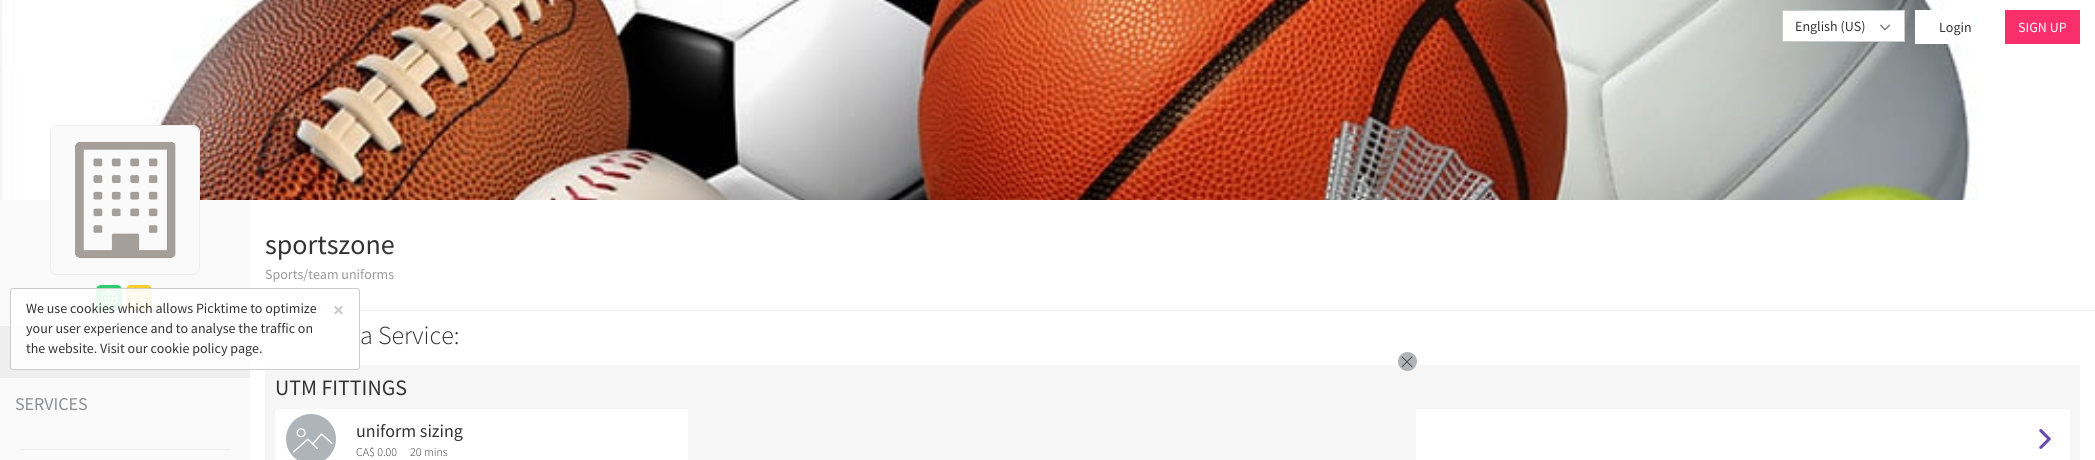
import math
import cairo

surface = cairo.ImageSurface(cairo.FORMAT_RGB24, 2095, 460)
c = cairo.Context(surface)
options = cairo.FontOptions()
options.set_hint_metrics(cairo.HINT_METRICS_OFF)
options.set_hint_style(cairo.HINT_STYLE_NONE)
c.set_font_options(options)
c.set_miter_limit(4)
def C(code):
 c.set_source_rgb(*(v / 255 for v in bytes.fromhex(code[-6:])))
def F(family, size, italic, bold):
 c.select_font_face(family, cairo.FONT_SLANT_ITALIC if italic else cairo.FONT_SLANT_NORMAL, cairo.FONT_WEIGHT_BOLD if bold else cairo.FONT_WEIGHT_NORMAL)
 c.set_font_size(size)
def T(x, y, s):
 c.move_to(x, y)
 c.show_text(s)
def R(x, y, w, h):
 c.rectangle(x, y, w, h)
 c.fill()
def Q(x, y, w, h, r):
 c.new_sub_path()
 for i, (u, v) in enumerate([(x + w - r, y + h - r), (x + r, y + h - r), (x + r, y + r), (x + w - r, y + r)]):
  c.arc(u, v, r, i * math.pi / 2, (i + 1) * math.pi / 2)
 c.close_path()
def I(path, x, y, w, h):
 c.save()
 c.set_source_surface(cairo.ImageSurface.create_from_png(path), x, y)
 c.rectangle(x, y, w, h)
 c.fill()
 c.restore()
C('fafafa')
c.paint()
I('1.png',0,0,2095,200)
C('ffffff')
c.rectangle(1782.5,10.5,122,31)
c.fill_preserve()
C('cccccc')
c.set_line_width(1)
c.stroke()
F('Source Sans Pro',14,0,0)
C('333333')
T(1795,31,'English (US)')
I('2.png',1880,24,10,7)
C('ffffff')
R(1915,10,46,34)
C('333333')
T(1939,32,'Login')
C('f92f6c')
R(2005,10,75,34)
C('ffffff')
T(2018,32,'SIGN UP')
Q(50.5,125.5,149,149,6.5)
C('eeeeee')
c.stroke()
I('3.png',51,126,148,148)
C('ffffff')
R(250,200,1845,260)
C('eeeeee')
R(250,310,1845,1)
C('f6f6f6')
R(265,365,1815,95)
C('2ecc71')
Q(96,285,26,26,5)
c.fill()
I('6.png',101,290,16,17)
C('f7cc30')
Q(126,285,26,26,5)
c.fill()
I('7.png',131,292,16,13)
C('efeeee')
R(0,326,250,52)
c.set_source_rgba(1,1,1,0.9)
Q(10.5,288.5,349,81,2.5)
c.fill_preserve()
C('cccccc')
c.stroke()
C('333333')
T(26,313,'We use cookies which allows Picktime to optimize')
F('Source Sans Pro',21,0,1)
C('cccccc')
T(333,317,'×')
F('Source Sans Pro',14,0,0)
C('333333')
T(26,333,'your user experience and to analyse the traffic on')
T(26,353,'the website. Visit our cookie policy page.')
F('Source Sans Pro',28,0,0)
T(265,254,'sportszone')
F('Source Sans Pro',14,0,0)
C('999999')
T(265,279,'Sports/team uniforms')
F('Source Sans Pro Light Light',26,0,0)
C('333333')
T(360,344,'a Service:')
F('Source Sans Pro',22,0,0)
T(275,395,'UTM FITTINGS')
C('ffffff')
Q(275,409,1795,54,3)
c.fill()
C('afb4b8')
c.arc(311,439,25,0,2 * math.pi)
c.fill()
I('4.png',292,428,41,25)
F('Source Sans Pro',18,0,0)
C('333333')
T(356,437,'uniform sizing')
F('Source Sans Pro Light Light',12,0,0)
T(356,456,'CA$ 0.00')
T(410,456,'20 mins')
I('5.png',2039,429,12,20)
F('Source Sans Pro',18,0,0)
C('8d8e90')
T(15,410,'SERVICES')
C('eeeeee')
R(20,449,210,1)
C('f6f6f6')
R(688,409,728,51)
C('afb4b8')
c.new_path()
c.arc(1407.5,361.5,9.5,0,2 * math.pi)
c.fill()
I('8.png',1401,356,12,12)
surface.write_to_png('o.png')
